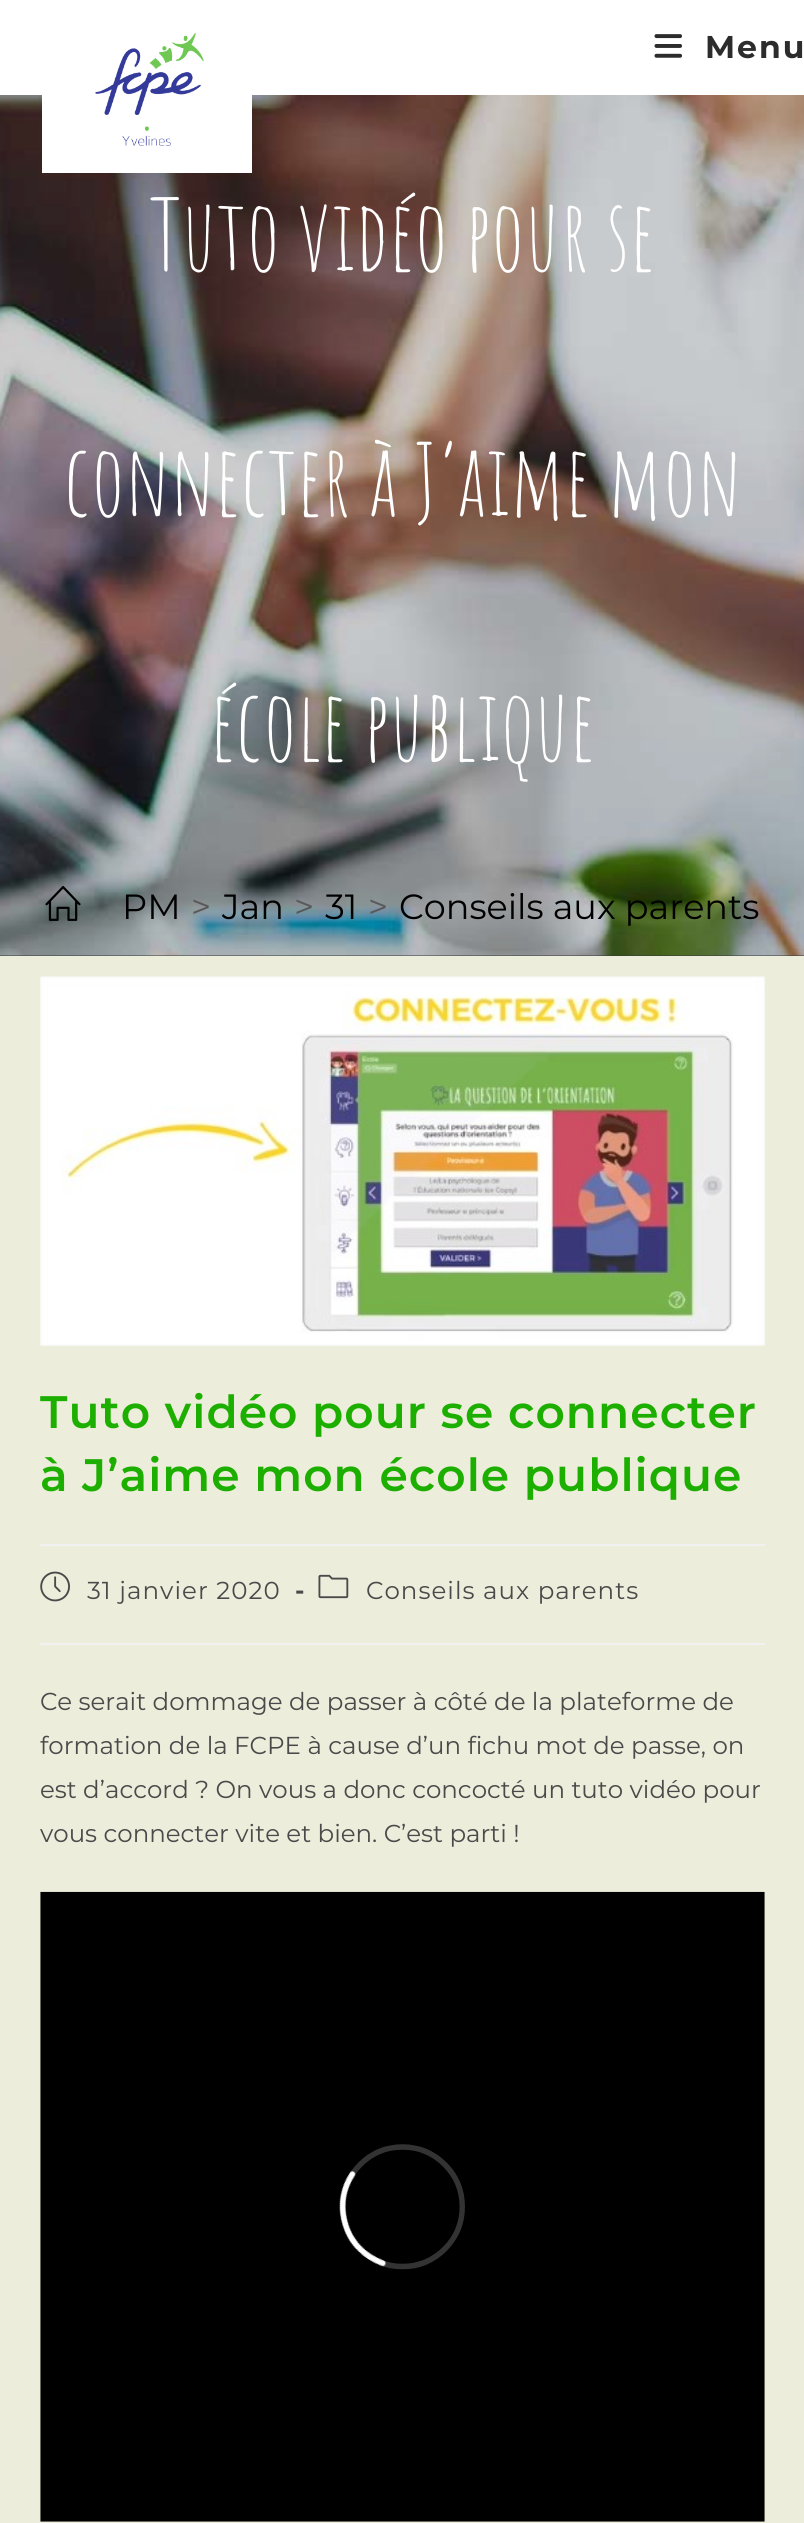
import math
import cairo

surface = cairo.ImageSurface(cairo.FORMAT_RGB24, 804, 2523)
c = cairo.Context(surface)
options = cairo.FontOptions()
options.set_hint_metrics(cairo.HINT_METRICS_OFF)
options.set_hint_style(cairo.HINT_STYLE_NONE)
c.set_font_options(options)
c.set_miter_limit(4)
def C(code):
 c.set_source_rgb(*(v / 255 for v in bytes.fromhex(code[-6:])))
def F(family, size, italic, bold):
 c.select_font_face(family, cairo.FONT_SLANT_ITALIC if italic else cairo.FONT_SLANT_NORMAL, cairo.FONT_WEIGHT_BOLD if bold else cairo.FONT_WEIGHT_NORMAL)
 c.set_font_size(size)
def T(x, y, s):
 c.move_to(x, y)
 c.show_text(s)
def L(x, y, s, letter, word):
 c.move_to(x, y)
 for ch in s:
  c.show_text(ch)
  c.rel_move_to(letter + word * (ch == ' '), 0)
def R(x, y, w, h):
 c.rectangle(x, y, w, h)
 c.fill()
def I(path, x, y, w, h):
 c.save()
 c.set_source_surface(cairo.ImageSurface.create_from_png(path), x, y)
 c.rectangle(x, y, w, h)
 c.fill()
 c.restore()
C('ededdc')
c.paint()
C('ffffff')
R(0,0,804,95)
C('34383d')
R(0,955,804,1)
I('3.png',0,95,804,861)
C('ffffff')
R(42,95,210,78)
I('1.png',95,32,109,114)
I('2.png',654,34,28,24)
F('Montserrat',31.5,0,1)
C('2c2c2c')
L(705,58,'Menu',2,0)
F('Amatic SC',98,0,0)
C('ffffff')
T(150,271,'Tuto vidéo pour se')
T(63,516,'connecter à J’aime mon')
T(210,761,'école publique')
I('4.png',45,886,36,35)
F('Montserrat',35,0,0)
C('000000')
T(122,919,'PM')
C('595959')
T(191,919,'>')
C('000000')
T(222,919,'Jan')
C('595959')
T(294,919,'>')
C('000000')
T(325,919,'31')
C('595959')
T(368,919,'>')
C('000000')
T(399,919,'Conseils aux parents')
I('5.png',40,976,725,370)
C('f1f1f1')
R(40,1544,725,2)
F('Montserrat SemiBold',45.5,0,0)
C('1daf00')
L(40,1428,'Tuto vidéo pour se connecter',1.05,0)
L(40,1491,'à J’aime mon école publique',1.05,0)
C('f1f1f1')
R(40,1643,725,2)
I('6.png',40,1571,30,31)
F('Montserrat',24.5,0,0)
C('4a4a4a')
L(87,1599,'31 janvier 2020',1.05,0)
F('Montserrat',24.5,0,1)
L(295,1599,'-',1.05,0)
I('7.png',318,1574,31,25)
F('Montserrat',24.5,0,0)
L(366,1599,'Conseils aux parents',1.05,0)
T(40,1710,'Ce serait dommage de passer à côté de la plateforme de')
T(40,1754,'formation de la FCPE à cause d’un fichu mot de passe, on')
T(40,1798,'est d’accord ? On vous a donc concocté un tuto vidéo pour')
T(40,1842,'vous connecter vite et bien. C’est parti !')
I('8.png',40,1891,725,631)
surface.write_to_png('o.png')
